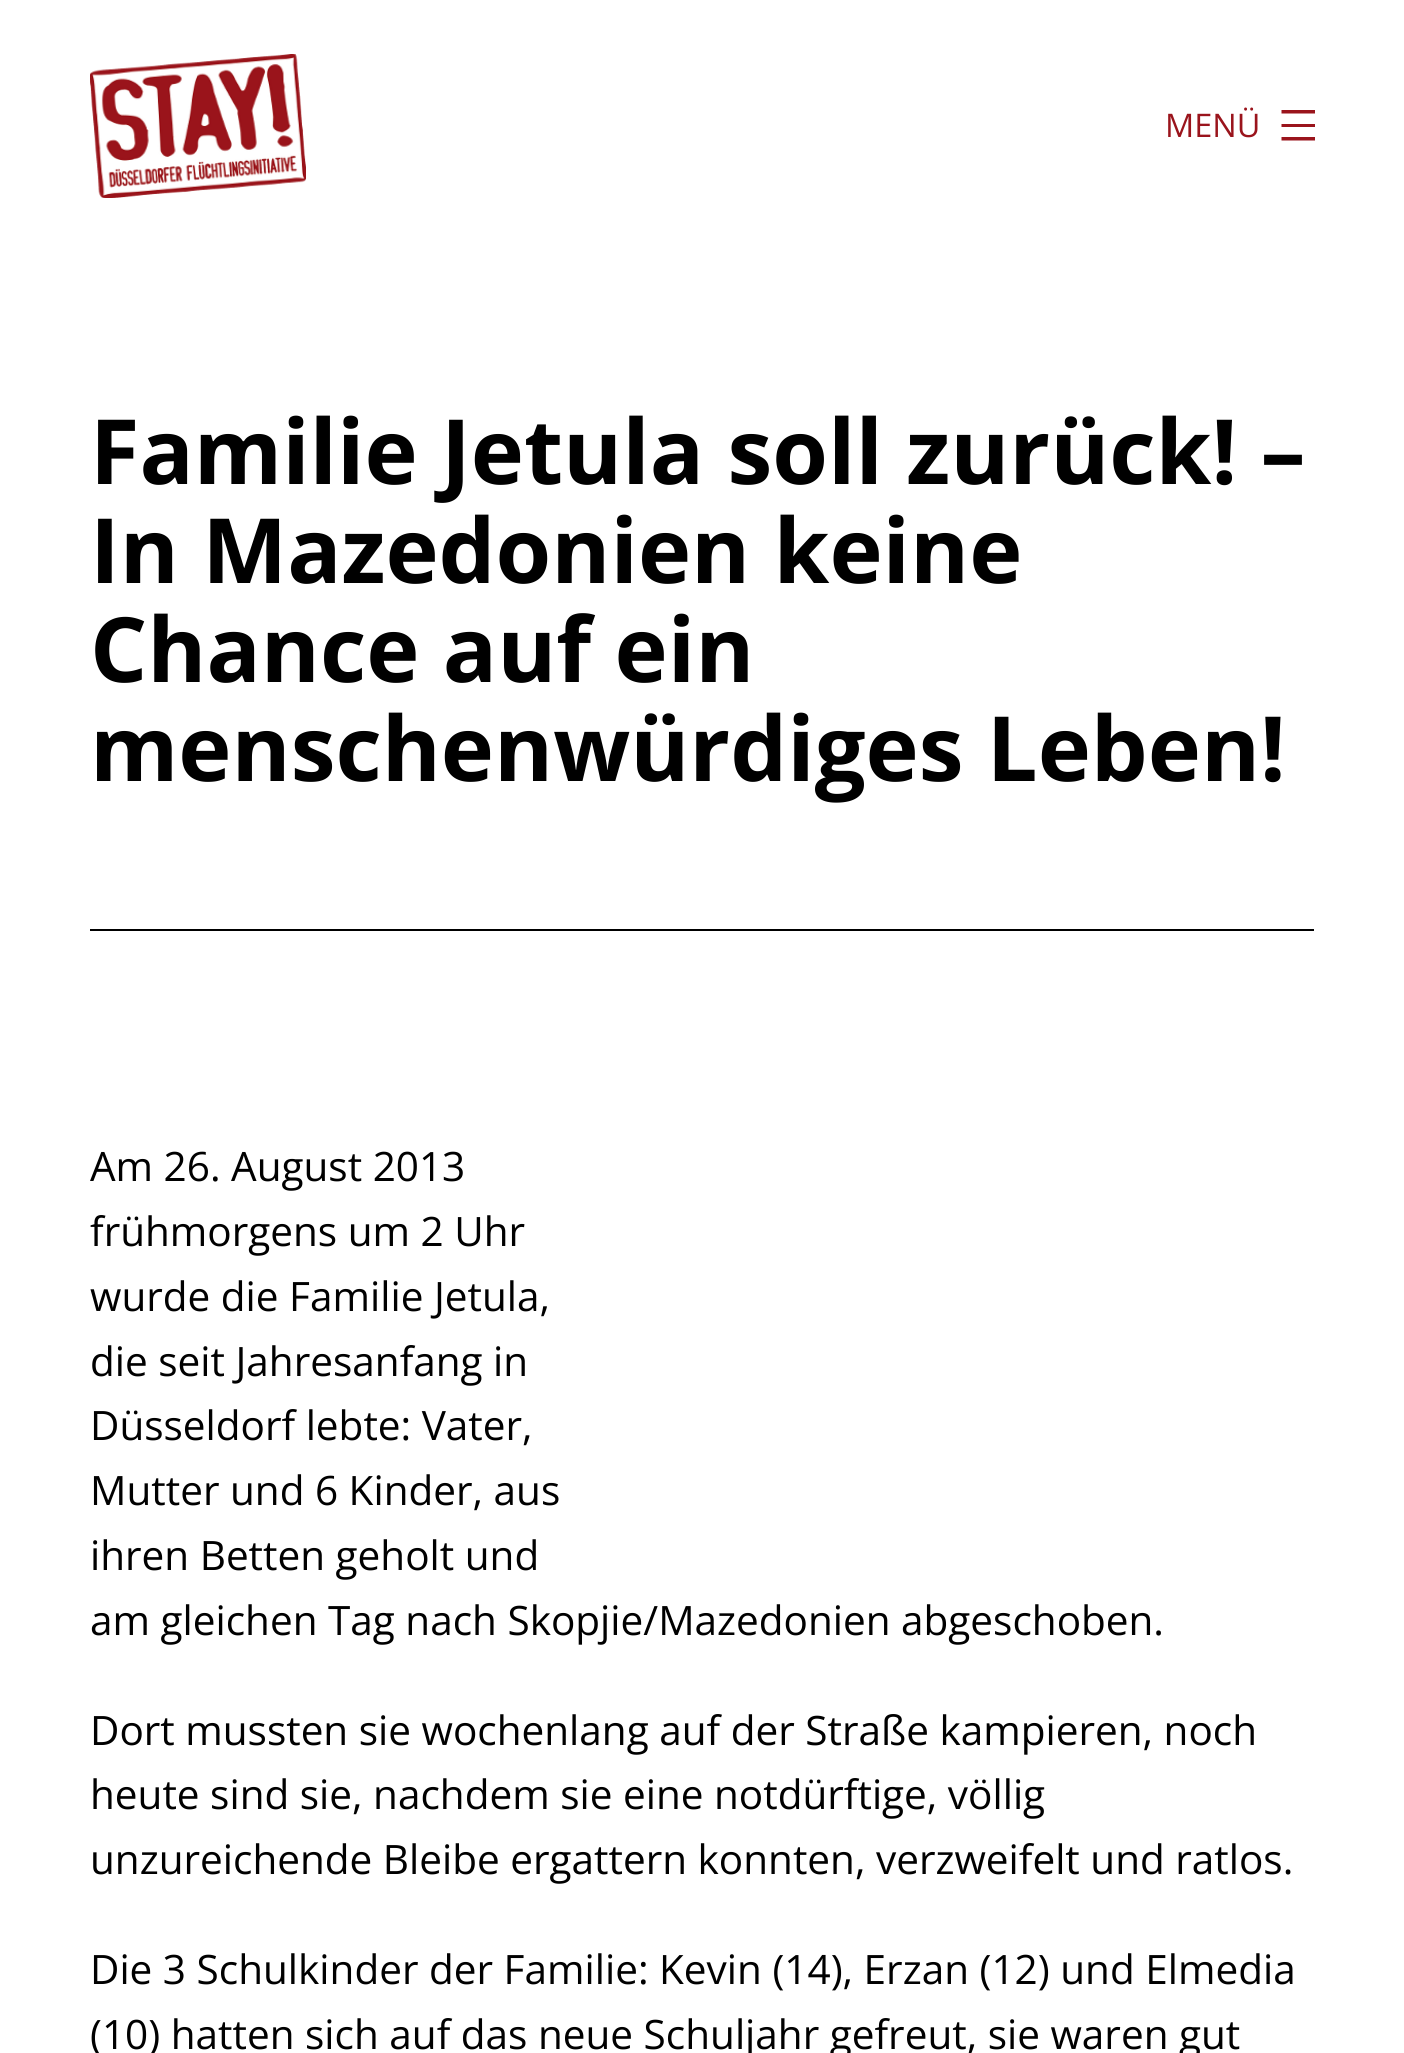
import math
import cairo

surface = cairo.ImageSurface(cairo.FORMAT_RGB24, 1404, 2053)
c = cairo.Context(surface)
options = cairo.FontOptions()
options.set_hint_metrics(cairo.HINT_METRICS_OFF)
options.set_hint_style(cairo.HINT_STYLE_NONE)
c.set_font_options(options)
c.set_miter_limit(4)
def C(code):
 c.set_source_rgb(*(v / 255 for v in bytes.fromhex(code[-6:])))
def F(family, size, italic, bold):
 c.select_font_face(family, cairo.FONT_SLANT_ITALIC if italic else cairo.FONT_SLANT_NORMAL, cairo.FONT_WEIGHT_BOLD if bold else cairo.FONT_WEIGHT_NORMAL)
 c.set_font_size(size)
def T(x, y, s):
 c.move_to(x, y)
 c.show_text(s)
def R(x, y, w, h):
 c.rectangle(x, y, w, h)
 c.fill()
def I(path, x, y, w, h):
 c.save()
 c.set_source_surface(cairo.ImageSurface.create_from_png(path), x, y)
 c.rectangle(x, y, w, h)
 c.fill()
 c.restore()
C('ffffff')
c.paint()
I('1.png',90,54,216,144)
F('Open Sans',32.5,0,0)
C('9a141c')
T(1165,137,'MENÜ')
c.set_fill_rule(cairo.FILL_RULE_EVEN_ODD)
c.new_path()
c.move_to(1281.5,110)
c.line_to(1315,110)
c.line_to(1315,113.5)
c.line_to(1281.5,113.5)
c.close_path()
c.move_to(1281.5,124)
c.line_to(1315,124)
c.line_to(1315,127)
c.line_to(1281.5,127)
c.close_path()
c.move_to(1315,137)
c.line_to(1281.5,137)
c.line_to(1281.5,140.5)
c.line_to(1315,140.5)
c.close_path()
c.fill()
F('Open Sans',90,0,1)
C('000000')
T(90,484,'Familie Jetula soll zurück! –')
T(90,583,'In Mazedonien keine')
T(90,682,'Chance auf ein')
T(90,781,'menschenwürdiges Leben!')
R(90,929,1224,2)
F('Open Sans',40.5,0,0)
T(90,1181,'Am 26. August 2013')
T(90,1246,'frühmorgens um 2 Uhr')
T(90,1311,'wurde die Familie Jetula,')
T(90,1376,'die seit Jahresanfang in')
T(90,1440,'Düsseldorf lebte: Vater,')
T(90,1505,'Mutter und 6 Kinder, aus')
T(90,1570,'ihren Betten geholt und')
T(90,1635,'am gleichen Tag nach Skopjie/Mazedonien abgeschoben.')
T(90,1745,'Dort mussten sie wochenlang auf der Straße kampieren, noch')
T(90,1809,'heute sind sie, nachdem sie eine notdürftige, völlig')
T(90,1874,'unzureichende Bleibe ergattern konnten, verzweifelt und ratlos.')
T(90,1984,'Die 3 Schulkinder der Familie: Kevin (14), Erzan (12) und Elmedia')
T(90,2049,'(10) hatten sich auf das neue Schuljahr gefreut, sie waren gut')
surface.write_to_png('o.png')
